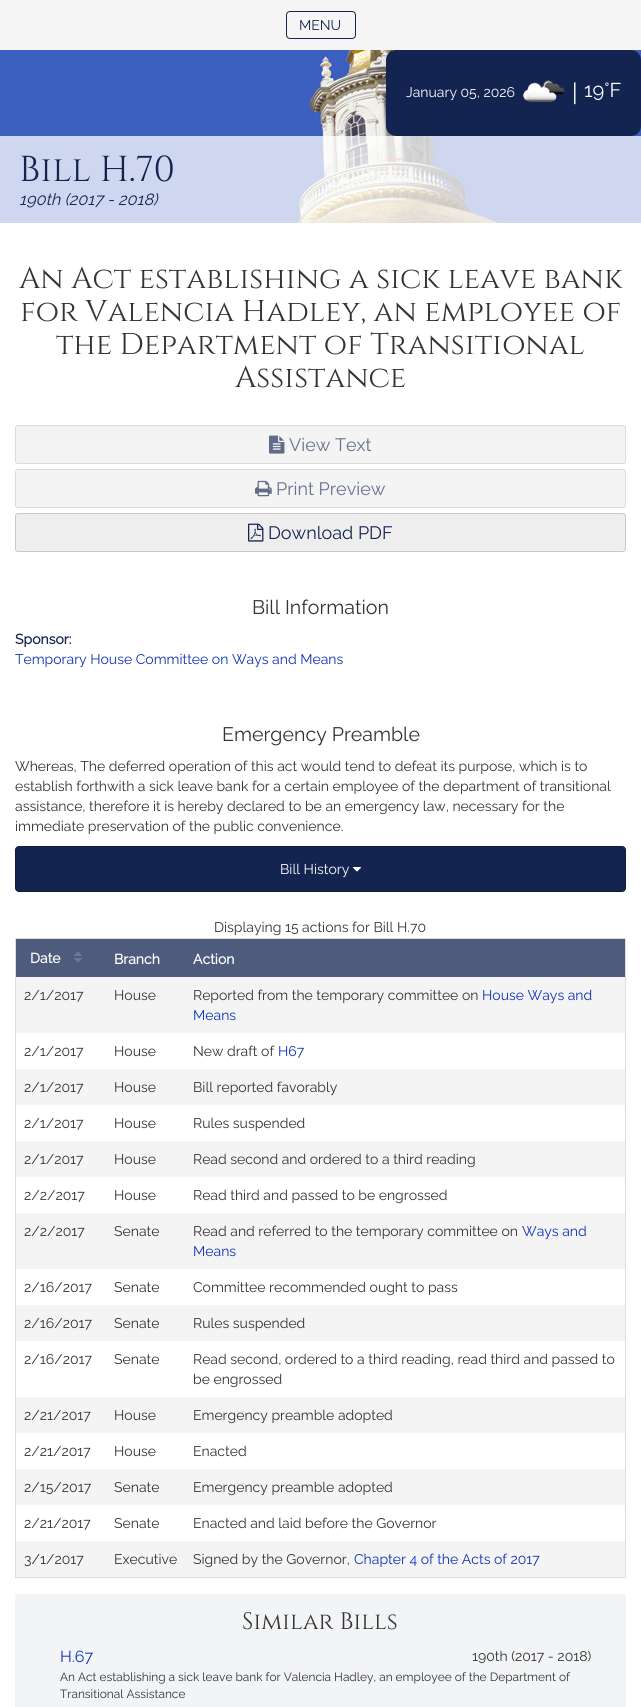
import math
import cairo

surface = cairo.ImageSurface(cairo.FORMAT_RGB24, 641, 1707)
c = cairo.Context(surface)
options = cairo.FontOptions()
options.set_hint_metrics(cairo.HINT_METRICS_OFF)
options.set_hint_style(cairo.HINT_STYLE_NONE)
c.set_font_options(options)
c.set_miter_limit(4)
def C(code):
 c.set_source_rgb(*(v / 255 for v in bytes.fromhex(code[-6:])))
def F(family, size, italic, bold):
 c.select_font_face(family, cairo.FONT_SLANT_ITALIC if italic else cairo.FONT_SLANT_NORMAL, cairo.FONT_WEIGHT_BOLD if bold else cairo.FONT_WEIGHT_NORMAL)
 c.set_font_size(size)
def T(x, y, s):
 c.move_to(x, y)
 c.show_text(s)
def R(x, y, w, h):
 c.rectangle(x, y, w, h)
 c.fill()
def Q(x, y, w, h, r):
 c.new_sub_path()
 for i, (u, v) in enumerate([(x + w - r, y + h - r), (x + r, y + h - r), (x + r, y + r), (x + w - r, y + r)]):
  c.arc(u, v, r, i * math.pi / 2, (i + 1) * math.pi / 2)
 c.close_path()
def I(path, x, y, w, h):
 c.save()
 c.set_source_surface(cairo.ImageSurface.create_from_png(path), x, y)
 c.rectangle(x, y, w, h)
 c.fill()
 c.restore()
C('ffffff')
c.paint()
I('1.png',0,50,641,173)
C('f5f5f5')
R(0,0,641,50)
Q(286.5,11.5,69,27,3.5)
C('132450')
c.set_line_width(1)
c.stroke()
F('Raleway Thin',14,0,0)
T(299,30,'MENU')
Q(386,50,255,86,10)
c.fill()
C('ffffff')
T(406,97,'January 05, 2026')
I('2.png',523,80,42,22)
F('Raleway Thin',24,0,0)
T(572,101,'|')
F('Raleway Thin',20,0,0)
T(584,97,'19°F')
c.set_source_rgba(1,1,1,0.75)
R(0,136,641,87)
F('Cinzel',36,0,0)
C('132450')
T(19,181,'Bill H.70')
F('Raleway Thin',16.25,1,0)
T(19,205,'190th (2017 - 2018)')
F('Cinzel',30,0,0)
C('333333')
T(19,288,'An Act establishing a sick leave bank')
T(20,321,'for Valencia Hadley, an employee of')
T(56,354,'the Department of Transitional')
T(235,387,'Assistance')
C('f4f4f4')
Q(15.5,425.5,610,38,2.5)
c.fill_preserve()
C('dbdbdb')
c.stroke()
I('3.png',269,435,16,19)
F('Raleway Thin',18,0,0)
C('66718d')
T(289,451,'View Text')
C('f4f4f4')
Q(15.5,469.5,610,38,2.5)
c.fill_preserve()
C('dbdbdb')
c.stroke()
I('4.png',255,480,17,17)
C('66718d')
T(276,495,'Print Preview')
C('eeeeee')
Q(15.5,513.5,610,38,2.5)
c.fill_preserve()
C('c8c8c8')
c.stroke()
I('5.png',248,523,16,19)
C('132450')
T(268,539,'Download PDF')
F('Raleway Thin',19.6,0,0)
C('333333')
T(252,614,'Bill Information')
F('Raleway',14,0,1)
C('132450')
T(15,644,'Sponsor:')
F('Raleway Thin',14,0,0)
C('0d32b6')
T(15,664,'Temporary House Committee on Ways and Means')
F('Raleway Thin',19.6,0,0)
C('333333')
T(222,741,'Emergency Preamble')
F('Raleway Thin',14,0,0)
T(15,771,'Whereas, The deferred operation of this act would tend to defeat its purpose, which is to')
T(15,791,'establish forthwith a sick leave bank for a certain employee of the department of transitional')
T(15,811,'assistance, therefore it is hereby declared to be an emergency law, necessary for the')
T(15,831,'immediate preservation of the public convenience.')
C('132450')
Q(15.5,846.5,610,45,3.5)
c.fill_preserve()
C('0e1b3b')
c.stroke()
C('ffffff')
T(280,874,'Bill History')
I('6.png',353,867,8,5)
C('333333')
T(214,932,'Displaying 15 actions for Bill H.70')
c.rectangle(15.5,938.5,610,639)
C('dddddd')
c.stroke()
C('4e5b7c')
R(16,939,609,38)
F('Raleway',14,0,1)
C('ffffff')
T(30,963,'Date')
I('7.png',74,951,8,12)
T(114,964,'Branch')
T(193,964,'Action')
C('f4f4f4')
R(16,977,609,56)
F('Raleway Thin',14,0,0)
C('333333')
T(24,1000,'2/1/2017')
T(114,1000,'House')
T(193,1000,'Reported from the temporary committee on')
C('0d32b6')
T(482,1000,'House Ways and')
T(193,1020,'Means')
C('333333')
T(24,1056,'2/1/2017')
T(114,1056,'House')
T(193,1056,'New draft of')
C('0d32b6')
T(278,1056,'H67')
C('f4f4f4')
R(16,1069,609,36)
C('333333')
T(24,1092,'2/1/2017')
T(114,1092,'House')
T(193,1092,'Bill reported favorably')
T(24,1128,'2/1/2017')
T(114,1128,'House')
T(193,1128,'Rules suspended')
C('f4f4f4')
R(16,1141,609,36)
C('333333')
T(24,1164,'2/1/2017')
T(114,1164,'House')
T(193,1164,'Read second and ordered to a third reading')
T(24,1200,'2/2/2017')
T(114,1200,'House')
T(193,1200,'Read third and passed to be engrossed')
C('f4f4f4')
R(16,1213,609,56)
C('333333')
T(24,1236,'2/2/2017')
T(114,1236,'Senate')
T(193,1236,'Read and referred to the temporary committee on')
C('0d32b6')
T(522,1236,'Ways and')
T(193,1256,'Means')
C('333333')
T(24,1292,'2/16/2017')
T(114,1292,'Senate')
T(193,1292,'Committee recommended ought to pass')
C('f4f4f4')
R(16,1305,609,36)
C('333333')
T(24,1328,'2/16/2017')
T(114,1328,'Senate')
T(193,1328,'Rules suspended')
T(24,1364,'2/16/2017')
T(114,1364,'Senate')
T(193,1364,'Read second, ordered to a third reading, read third and passed to')
T(193,1384,'be engrossed')
C('f4f4f4')
R(16,1397,609,36)
C('333333')
T(24,1420,'2/21/2017')
T(114,1420,'House')
T(193,1420,'Emergency preamble adopted')
T(24,1456,'2/21/2017')
T(114,1456,'House')
T(193,1456,'Enacted')
C('f4f4f4')
R(16,1469,609,36)
C('333333')
T(24,1492,'2/15/2017')
T(114,1492,'Senate')
T(193,1492,'Emergency preamble adopted')
T(24,1528,'2/21/2017')
T(114,1528,'Senate')
T(193,1528,'Enacted and laid before the Governor')
C('f4f4f4')
R(16,1541,609,36)
C('333333')
T(24,1564,'3/1/2017')
T(114,1564,'Executive')
T(193,1564,'Signed by the Governor,')
C('0d32b6')
T(354,1564,'Chapter 4 of the Acts of 2017')
C('f3f4f6')
R(15,1594,611,113)
F('Cinzel',23.75,0,0)
C('333333')
T(242,1629,'Similar Bills')
F('Raleway Thin',16,0,0)
C('0d32b6')
T(60,1662,'H.67')
F('Raleway Thin',14,0,0)
C('333333')
T(472,1661,'190th (2017 - 2018)')
F('Raleway Thin',11.9,0,0)
T(60,1681,'An Act establishing a sick leave bank for Valencia Hadley, an employee of the Department of')
T(60,1698,'Transitional Assistance')
surface.write_to_png('o.png')
